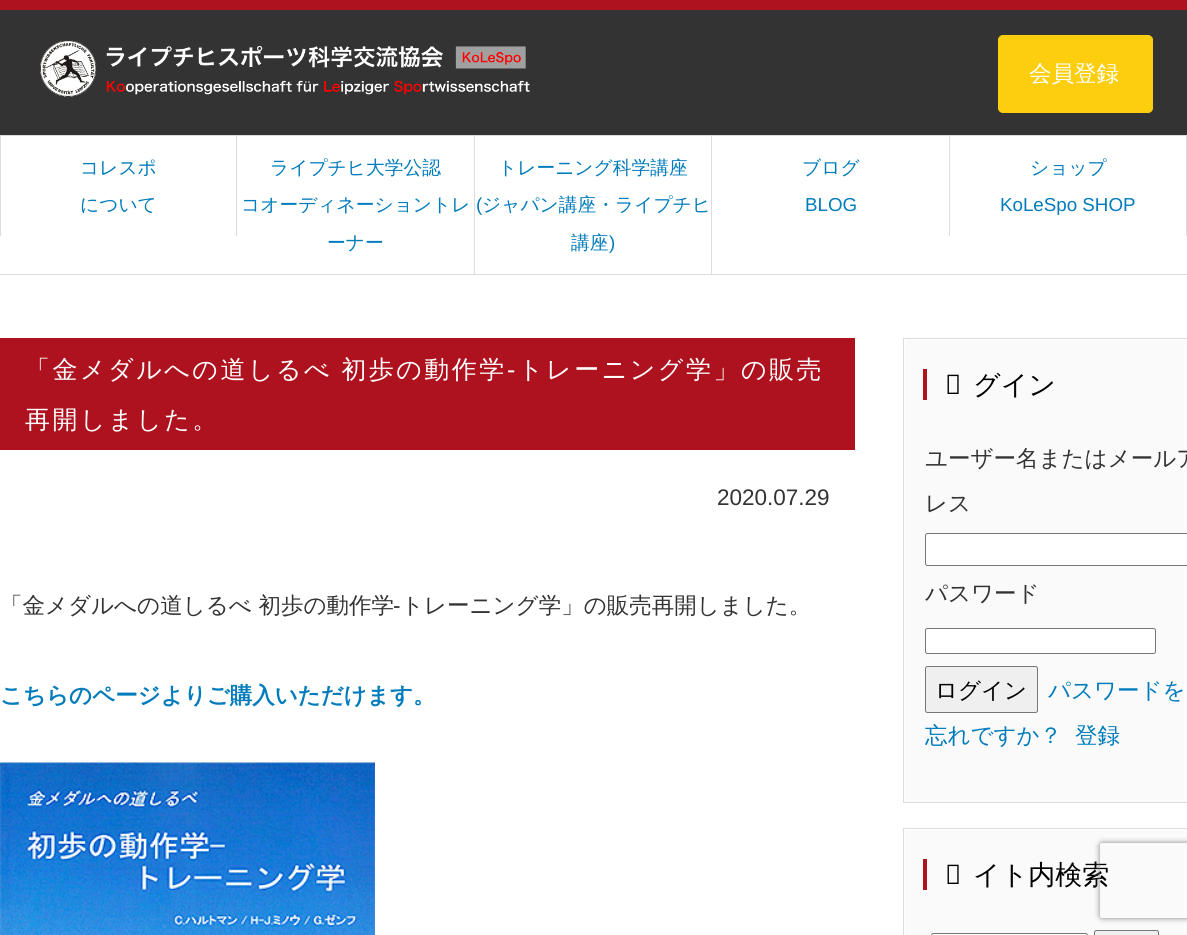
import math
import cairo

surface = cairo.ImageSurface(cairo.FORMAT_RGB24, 1187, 935)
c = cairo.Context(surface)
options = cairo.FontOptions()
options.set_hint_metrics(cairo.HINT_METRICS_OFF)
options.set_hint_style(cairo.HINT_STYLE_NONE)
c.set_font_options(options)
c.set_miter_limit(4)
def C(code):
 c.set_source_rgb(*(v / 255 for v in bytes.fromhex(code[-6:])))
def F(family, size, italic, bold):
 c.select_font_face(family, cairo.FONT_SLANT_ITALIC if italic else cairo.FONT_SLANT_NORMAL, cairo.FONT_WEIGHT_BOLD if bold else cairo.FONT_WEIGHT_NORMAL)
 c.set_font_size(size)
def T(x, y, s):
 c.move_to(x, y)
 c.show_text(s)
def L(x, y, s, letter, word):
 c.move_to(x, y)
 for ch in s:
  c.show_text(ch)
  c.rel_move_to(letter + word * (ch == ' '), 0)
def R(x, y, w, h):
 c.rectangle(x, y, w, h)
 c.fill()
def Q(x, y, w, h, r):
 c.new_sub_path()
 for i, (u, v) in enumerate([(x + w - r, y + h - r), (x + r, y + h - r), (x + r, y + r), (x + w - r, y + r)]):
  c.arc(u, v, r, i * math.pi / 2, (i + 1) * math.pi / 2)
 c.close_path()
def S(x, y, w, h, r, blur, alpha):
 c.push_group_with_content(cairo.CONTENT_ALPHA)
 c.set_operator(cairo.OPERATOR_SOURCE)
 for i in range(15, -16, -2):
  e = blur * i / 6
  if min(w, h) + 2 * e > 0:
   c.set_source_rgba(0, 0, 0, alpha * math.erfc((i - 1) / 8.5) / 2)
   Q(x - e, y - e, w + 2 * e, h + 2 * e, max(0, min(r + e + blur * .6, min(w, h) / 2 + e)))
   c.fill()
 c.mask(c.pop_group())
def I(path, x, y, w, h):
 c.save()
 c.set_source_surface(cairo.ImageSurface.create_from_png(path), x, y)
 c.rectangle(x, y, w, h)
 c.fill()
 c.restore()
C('ffffff')
c.paint()
C('333333')
R(0,10,1187,125)
C('ae121f')
R(0,0,1187,10)
I('1.png',40,40,490,57)
C('fcce0d')
Q(998.5,35.5,154,77,4.5)
c.fill_preserve()
c.set_line_width(1)
c.stroke()
F('WenQuanYi Zen Hei Medium',22.5,0,0)
C('ffffff')
T(1029,81,'会員登録')
C('dcdcdc')
R(0,135,1187,1)
R(0,274,1187,1)
R(236,136,1,100)
R(0,136,1,100)
F('WenQuanYi Zen Hei Medium',18.75,0,0)
C('007bbb')
T(80,174,'コレスポ')
T(80,211,'について')
C('dcdcdc')
R(474,136,1,138)
C('007bbb')
T(270,174,'ライプチヒ大学公認')
T(241,211,'コオーディネーショントレ')
T(327,249,'ーナー')
C('dcdcdc')
R(711,136,1,138)
C('007bbb')
T(498,174,'トレーニング科学講座')
F('Liberation Sans',18.75,0,0)
T(476,211,'(')
F('WenQuanYi Zen Hei Medium',18.75,0,0)
T(482,211,'ジャパン講座・ライプチヒ')
T(571,249,'講座')
F('Liberation Sans',18.75,0,0)
T(609,249,')')
C('dcdcdc')
R(949,136,1,100)
F('WenQuanYi Zen Hei Medium',18.75,0,0)
C('007bbb')
T(802,174,'ブログ')
F('Liberation Sans',18.75,0,0)
T(805,211,'BLOG')
C('dcdcdc')
R(1186,136,1,100)
F('WenQuanYi Zen Hei Medium',18.75,0,0)
C('007bbb')
T(1030,174,'ショップ')
F('Liberation Sans',18.75,0,0)
T(1000,211,'KoLeSpo SHOP')
C('ae121f')
R(0,338,855,112)
F('WenQuanYi Zen Hei Medium',25,0,0)
C('ffffff')
L(25,378,'「金メダルへの道しるべ 初歩の動作学',2.5,-1)
F('Liberation Sans',25,0,0)
L(507,378,'-',2.5,0)
F('WenQuanYi Zen Hei Medium',25,0,0)
L(518,378,'トレーニング学」の販売',2.5,0)
L(25,428,'再開しました。',2.5,0)
F('Liberation Sans',22.5,0,0)
C('333333')
T(717,505,'2020.07.29')
F('WenQuanYi Zen Hei Medium',22.5,0,0)
T(0,613,'「金メダルへの道しるべ 初歩の動作学')
F('Liberation Sans',22.5,0,0)
T(393,613,'-')
F('WenQuanYi Zen Hei Medium',22.5,0,0)
T(401,613,'トレーニング学」の販売再開しました。')
F('WenQuanYi Zen Hei',22.5,0,1)
C('007bbb')
T(0,703,'こちらのページよりご購入いただけます。')
I('2.png',0,762,375,173)
C('fafafa')
R(904,339,283,463)
c.rectangle(904.5,339.5,281,461)
C('ffffff')
c.stroke()
c.rectangle(903.5,338.5,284,464)
C('dcdcdc')
c.stroke()
F('Noto Sans',27,0,0)
C('000000')
T(945,394,'ロ')
C('ae121f')
R(923,369,4,31)
F('WenQuanYi Zen Hei Medium',27,0,0)
C('000000')
T(973,394,'グイン')
F('WenQuanYi Zen Hei Medium',22.5,0,0)
C('333333')
T(925,466,'ユーザー名またはメールア')
T(925,511,'レス')
C('ffffff')
c.new_path()
c.move_to(927.5,533)
c.line_to(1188,533)
c.line_to(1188,566)
c.line_to(927.5,566)
c.curve_to(926,566,925,565,925,563.5)
c.line_to(925,535.5)
c.curve_to(925,534,926,533,927.5,533)
c.close_path()
c.fill()
Q(925.5,533.5,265,32,2)
C('767676')
c.stroke()
C('333333')
T(925,601,'パスワード')
C('ffffff')
Q(925.5,628.5,230,25,2)
c.fill_preserve()
C('767676')
c.stroke()
C('efefef')
Q(925.5,666.5,112,46,2)
c.fill_preserve()
C('767676')
c.stroke()
C('000000')
T(935,698,'ログイン')
C('007bbb')
T(1048,698,'パスワードを')
T(925,743,'忘れですか？')
T(1075,743,'登録')
C('fafafa')
R(905,829,282,106)
c.rectangle(904.5,829.5,281,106)
C('ffffff')
c.stroke()
c.rectangle(903.5,828.5,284,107)
C('dcdcdc')
c.stroke()
F('Noto Sans',27,0,0)
C('000000')
T(945,884,'サ')
C('ae121f')
R(923,859,4,31)
F('WenQuanYi Zen Hei Medium',27,0,0)
C('000000')
T(973,884,'イト内検索')
C('ffffff')
Q(931.5,933.5,156,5,2)
c.fill_preserve()
C('767676')
c.stroke()
C('efefef')
Q(1094.5,930.5,64,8,2)
c.fill_preserve()
C('767676')
c.stroke()
c.save()
c.set_fill_rule(cairo.FILL_RULE_EVEN_ODD)
c.new_path()
c.move_to(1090,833)
c.line_to(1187,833)
c.line_to(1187,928)
c.line_to(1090,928)
c.close_path()
c.move_to(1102.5,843)
c.line_to(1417.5,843)
c.curve_to(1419,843,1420,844,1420,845.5)
c.line_to(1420,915.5)
c.curve_to(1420,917,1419,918,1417.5,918)
c.line_to(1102.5,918)
c.curve_to(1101,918,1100,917,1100,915.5)
c.line_to(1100,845.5)
c.curve_to(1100,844,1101,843,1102.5,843)
c.close_path()
c.clip()
C('808080')
S(1100,843,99,75,2.5,3,1)
c.restore()
surface.write_to_png('o.png')
